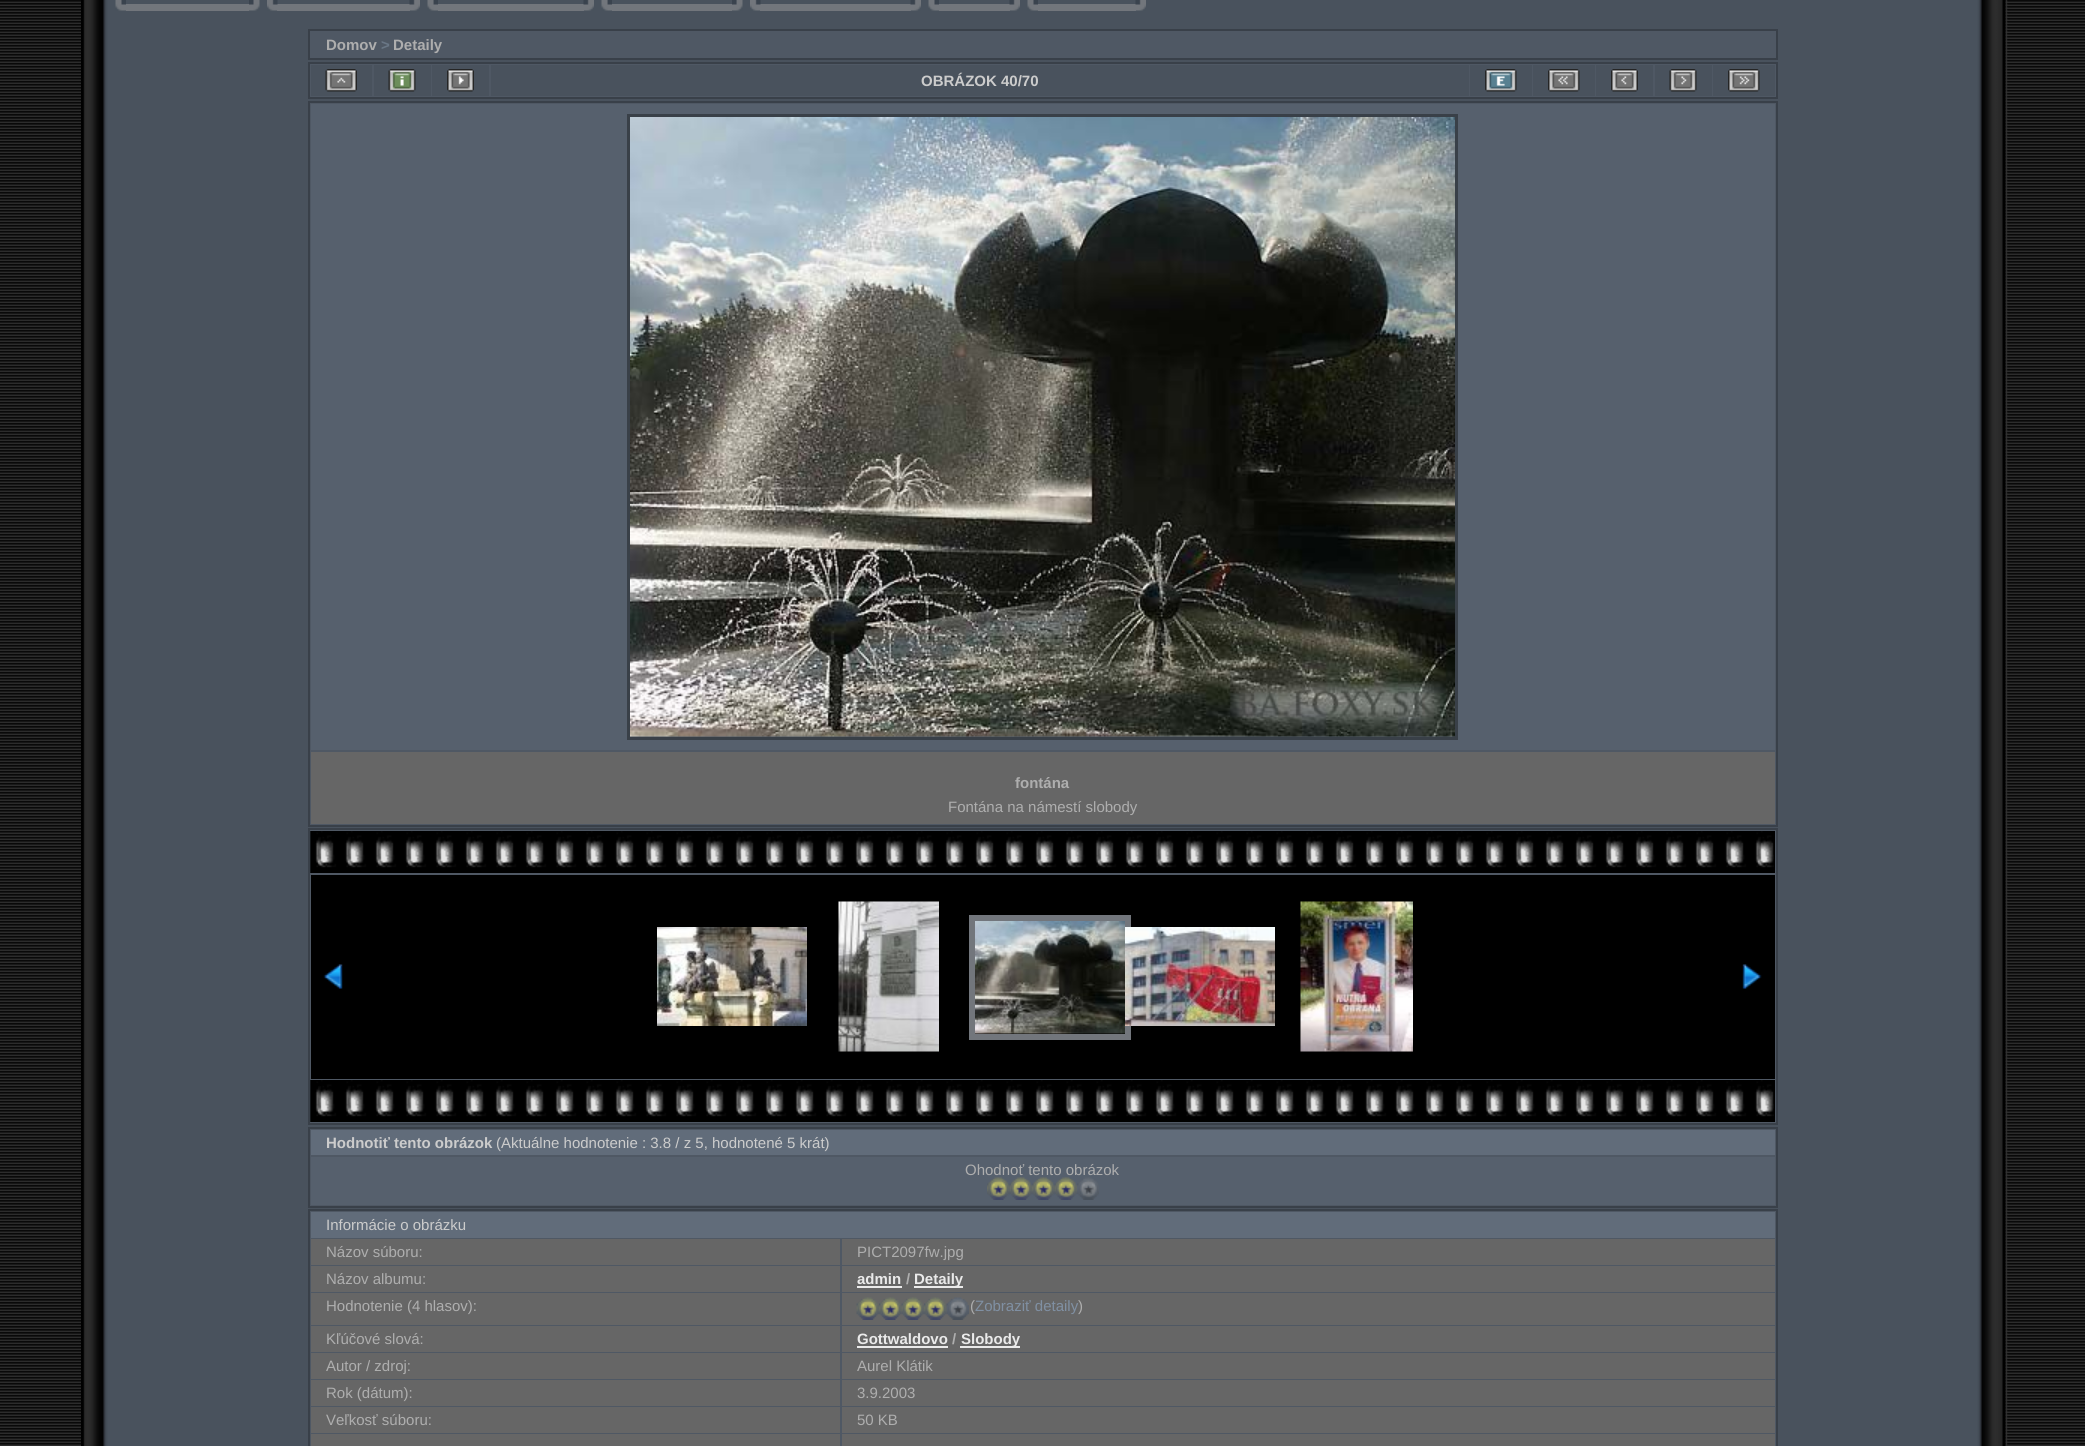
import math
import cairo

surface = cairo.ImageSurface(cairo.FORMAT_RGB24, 2085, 1446)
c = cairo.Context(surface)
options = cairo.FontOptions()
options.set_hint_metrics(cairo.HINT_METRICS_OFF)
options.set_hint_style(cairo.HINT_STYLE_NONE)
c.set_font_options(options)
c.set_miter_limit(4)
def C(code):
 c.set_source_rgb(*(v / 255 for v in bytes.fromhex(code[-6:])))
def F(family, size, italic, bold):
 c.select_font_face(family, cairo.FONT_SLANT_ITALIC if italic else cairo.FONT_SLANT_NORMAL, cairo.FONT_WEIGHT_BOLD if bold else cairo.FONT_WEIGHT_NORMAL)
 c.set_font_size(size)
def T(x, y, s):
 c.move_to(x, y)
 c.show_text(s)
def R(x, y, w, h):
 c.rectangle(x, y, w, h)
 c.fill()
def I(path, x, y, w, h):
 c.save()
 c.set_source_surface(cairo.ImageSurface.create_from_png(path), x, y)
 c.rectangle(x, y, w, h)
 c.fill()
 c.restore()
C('ffffff')
c.paint()
I('1.png',0,0,2085,1446)
I('2.png',81,0,27,1446)
C('49525d')
R(108,0,1869,1446)
I('3.png',115,0,11,11)
C('72767c')
R(126,4,123,7)
I('4.png',249,0,11,11)
R(277,4,133,7)
I('5.png',267,0,11,11)
I('6.png',409,0,11,11)
I('7.png',427,0,11,11)
R(438,4,146,7)
I('6.png',583,0,11,11)
I('7.png',601,0,11,11)
R(612,4,120,7)
I('8.png',732,0,11,11)
R(760,4,151,7)
I('5.png',750,0,11,11)
I('9.png',910,0,11,11)
I('3.png',928,0,11,11)
R(939,4,71,7)
I('9.png',1009,0,11,11)
I('3.png',1027,0,11,11)
R(1038,4,98,7)
I('6.png',1135,0,11,11)
C('4f5864')
c.rectangle(309,30,1468,29)
c.fill_preserve()
C('394049')
c.stroke()
F('Liberation Sans',15,0,1)
C('aeaeae')
T(326,50,'Domov')
C('6a7786')
T(381,50,'>')
C('aeaeae')
T(393,50,'Detaily')
C('4f5864')
c.rectangle(309,63,1468,35)
c.fill_preserve()
C('394049')
c.stroke()
C('49525d')
R(311,65,61,31)
I('10.png',325,69,32,23)
R(374,65,57,31)
I('11.png',388,69,28,23)
R(432,65,57,31)
I('12.png',447,69,27,23)
R(491,65,978,31)
C('cccccc')
T(921,86,'OBRÁZOK 40/70')
C('49525d')
R(1470,65,62,31)
I('13.png',1485,69,32,23)
R(1533,65,62,31)
I('14.png',1548,69,32,23)
R(1596,65,57,31)
I('15.png',1611,69,27,23)
R(1655,65,57,31)
I('16.png',1669,69,28,23)
R(1713,65,62,31)
I('17.png',1728,69,32,23)
C('4f5864')
c.rectangle(309,102,1468,724)
c.fill_preserve()
C('394049')
c.stroke()
C('56606d')
R(311,104,1464,646)
c.rectangle(628.5,115.5,828,623)
C('394048')
c.set_line_width(3)
c.stroke()
I('18.png',630,117,825,620)
C('666666')
R(311,752,1464,72)
C('aeaeae')
T(1015,788,'fontána')
F('Liberation Sans',15,0,0)
T(948,812,'Fontána na námestí slobody')
C('4f5864')
c.rectangle(309,829,1468,295)
c.fill_preserve()
C('394049')
c.set_line_width(2)
c.stroke()
C('000000')
R(1774,831,1,42)
I('19.png',310,831,1464,42)
I('20.png',310,831,11,42)
R(311,875,1464,204)
I('21.png',323,964,20,25)
I('22.png',657,927,150,99)
I('23.png',838,901,101,151)
c.rectangle(972,918,156,119)
C('72767c')
c.set_line_width(6)
c.stroke()
I('24.png',975,921,150,113)
I('25.png',1125,927,150,99)
I('26.png',1300,901,113,151)
I('27.png',1742,964,20,25)
C('000000')
R(1774,1080,1,42)
I('19.png',310,1080,1464,42)
I('20.png',310,1080,11,42)
C('4f5864')
c.rectangle(309,1128,1468,79)
c.fill_preserve()
C('394049')
c.set_line_width(2)
c.stroke()
C('616c7a')
R(311,1130,1464,25)
F('Liberation Sans',15,0,1)
C('cccccc')
T(326,1148,'Hodnotiť tento obrázok')
F('Liberation Sans',15,0,0)
T(496,1148,'(Aktuálne hodnotenie : 3.8 / z 5, hodnotené 5 krát)')
C('56606d')
R(311,1157,1464,48)
C('aeaeae')
T(965,1175,'Ohodnoť tento obrázok')
I('28.png',987,1177,23,23)
I('29.png',1009,1177,23,23)
I('30.png',1032,1177,23,23)
I('31.png',1054,1177,23,23)
I('32.png',1077,1177,22,23)
C('4f5864')
c.rectangle(309,1210,1468,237)
c.fill_preserve()
C('394049')
c.stroke()
C('616c7a')
R(311,1212,1464,26)
C('cccccc')
T(326,1230,'Informácie o obrázku')
C('666666')
R(311,1239,529,26)
C('aeaeae')
T(326,1257,'Názov súboru:')
C('666666')
R(842,1239,933,26)
C('aeaeae')
T(857,1257,'PICT2097fw.jpg')
C('666666')
R(311,1266,529,26)
C('aeaeae')
T(326,1284,'Názov albumu:')
C('666666')
R(842,1266,933,26)
F('Liberation Sans',15,0,1)
C('eaeaea')
T(857,1284,'admin')
R(857,1286,45,2)
C('aeaeae')
T(906,1284,'/')
C('eaeaea')
R(914,1286,49,2)
T(914,1284,'Detaily')
C('666666')
R(311,1293,529,32)
F('Liberation Sans',15,0,0)
C('aeaeae')
T(326,1311,'Hodnotenie (4 hlasov):')
C('666666')
R(842,1293,933,32)
I('33.png',856,1297,23,23)
I('34.png',879,1297,23,23)
I('35.png',901,1297,23,23)
I('34.png',924,1297,23,23)
I('36.png',946,1297,23,23)
C('aeaeae')
T(970,1311,'(')
C('8090a3')
T(975,1311,'Zobraziť detaily')
C('aeaeae')
T(1078,1311,')')
C('666666')
R(311,1326,529,26)
C('aeaeae')
T(326,1344,'Kľúčové slová:')
C('666666')
R(842,1326,933,26)
F('Liberation Sans',15,0,1)
C('eaeaea')
T(857,1344,'Gottwaldovo')
R(857,1346,91,2)
C('aeaeae')
T(952,1344,'/')
C('eaeaea')
R(960,1346,60,2)
T(961,1344,'Slobody')
C('666666')
R(311,1353,529,26)
F('Liberation Sans',15,0,0)
C('aeaeae')
T(326,1371,'Autor / zdroj:')
C('666666')
R(842,1353,933,26)
C('aeaeae')
T(857,1371,'Aurel Klátik')
C('666666')
R(311,1380,529,26)
C('aeaeae')
T(326,1398,'Rok (dátum):')
C('666666')
R(842,1380,933,26)
C('aeaeae')
T(857,1398,'3.9.2003')
C('666666')
R(311,1407,529,26)
C('aeaeae')
T(326,1425,'Veľkosť súboru:')
C('666666')
R(842,1407,933,26)
C('aeaeae')
T(857,1425,'50 KB')
C('666666')
R(311,1434,529,12)
R(842,1434,933,12)
I('38.png',2005,0,3,1446)
I('37.png',1977,0,29,1446)
surface.write_to_png('o.png')
